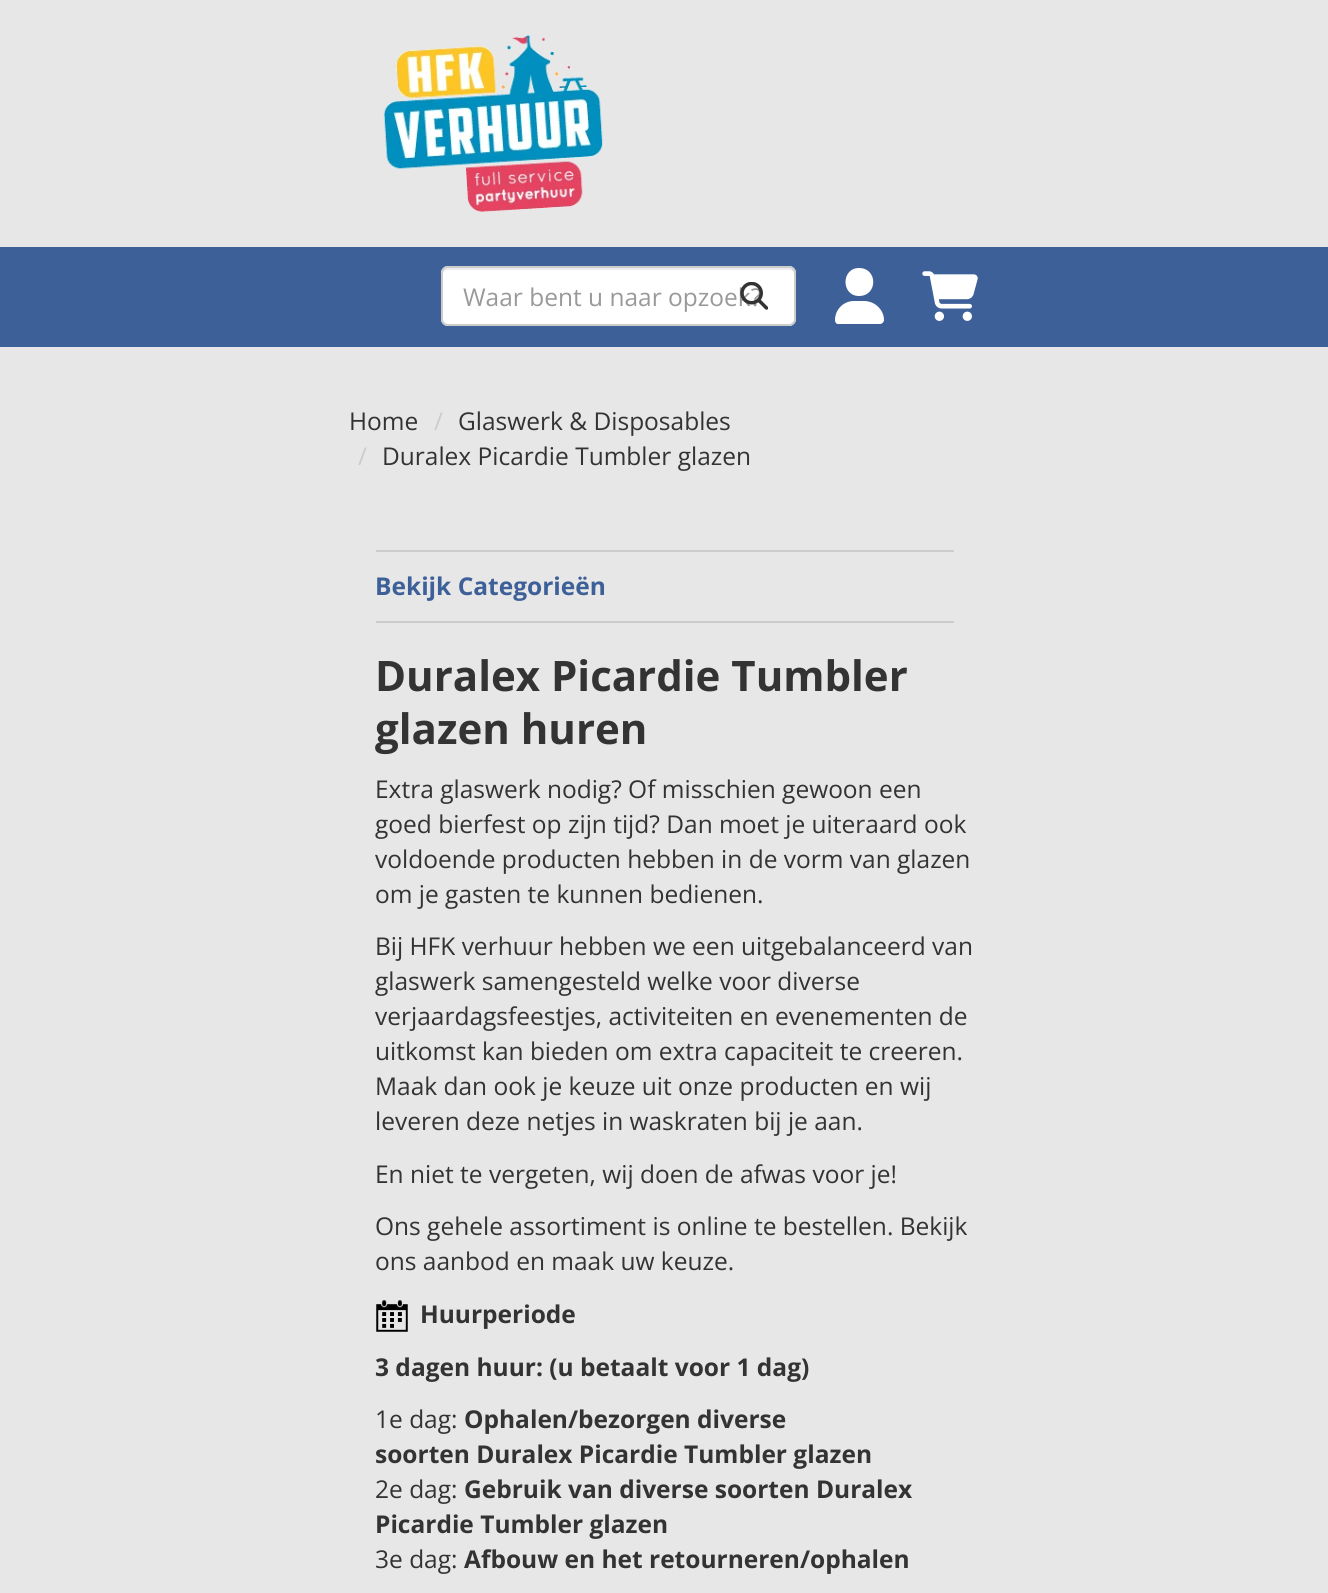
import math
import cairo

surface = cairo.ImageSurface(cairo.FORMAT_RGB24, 1328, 1593)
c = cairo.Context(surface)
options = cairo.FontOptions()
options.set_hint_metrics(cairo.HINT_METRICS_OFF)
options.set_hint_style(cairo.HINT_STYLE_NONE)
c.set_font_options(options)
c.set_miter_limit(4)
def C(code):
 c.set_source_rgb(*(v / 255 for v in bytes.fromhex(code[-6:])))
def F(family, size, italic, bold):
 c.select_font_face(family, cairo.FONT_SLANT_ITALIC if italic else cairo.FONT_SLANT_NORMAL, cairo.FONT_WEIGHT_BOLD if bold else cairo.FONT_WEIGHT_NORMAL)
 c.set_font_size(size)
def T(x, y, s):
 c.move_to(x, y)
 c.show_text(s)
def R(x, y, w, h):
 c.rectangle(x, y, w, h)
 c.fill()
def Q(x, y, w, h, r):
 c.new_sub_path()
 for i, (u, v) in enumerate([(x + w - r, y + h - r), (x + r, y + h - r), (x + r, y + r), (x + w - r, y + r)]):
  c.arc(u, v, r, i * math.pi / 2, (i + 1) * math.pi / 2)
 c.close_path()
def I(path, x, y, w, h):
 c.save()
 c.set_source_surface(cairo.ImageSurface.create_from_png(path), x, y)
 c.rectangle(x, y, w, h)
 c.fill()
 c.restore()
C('e7e7e7')
c.paint()
I('1.png',383,35,220,177)
C('3d6098')
R(0,247,1328,100)
C('ffffff')
Q(441,266,355,60,7)
c.fill()
C('ececec')
c.new_path()
c.move_to(448,270)
c.line_to(789,270)
c.curve_to(792,270,794,272,794,275)
c.line_to(794,320)
c.line_to(794,323)
c.curve_to(794,322,795,320,795,319)
c.line_to(795,273)
c.curve_to(795,270,793,268,790,268)
c.line_to(448,268)
c.curve_to(445,268,443,270,443,273)
c.line_to(443,275)
c.curve_to(443,272,445,270,448,270)
c.close_path()
c.fill()
Q(442,267,353,58,6)
C('cccccc')
c.stroke()
F('Open Sans',24.5,0,0)
C('999999')
T(463,306,'Waar bent u naar opzoek?')
I('2.png',740,282,28,28)
C('ffffff')
c.new_path()
c.move_to(859,296)
c.curve_to(878,296,878,268,859,268)
c.curve_to(841,268,841,296,859,296)
c.close_path()
c.move_to(854,301)
c.curve_to(843,301,835,310,835,320)
c.curve_to(835,322,836,324,838,324)
c.line_to(880,324)
c.curve_to(882,324,884,322,884,320)
c.curve_to(884,310,875,301,864,301)
c.close_path()
c.fill()
I('3.png',922,271,56,50)
C('333333')
T(349,430,'Home')
C('cccccc')
T(434,430,'/')
C('333333')
T(458,430,'Glaswerk & Disposables')
C('cccccc')
T(358,465,'/')
C('333333')
T(382,465,'Duralex Picardie Tumbler glazen')
C('cccccc')
R(376,550,578,2)
R(376,621,578,2)
F('Open Sans',24.5,0,1)
C('3d6098')
T(375,595,'Bekijk Categorieën')
F('Open Sans',42,0,1)
C('333333')
T(375,691,'Duralex Picardie Tumbler')
T(375,744,'glazen huren')
F('Open Sans',24.5,0,0)
T(375,798,'Extra glaswerk nodig? Of misschien gewoon een')
T(375,833,'goed bierfest op zijn tijd? Dan moet je uiteraard ook')
T(375,868,'voldoende producten hebben in de vorm van glazen')
T(375,903,'om je gasten te kunnen bedienen.')
T(375,955,'Bij HFK verhuur hebben we een uitgebalanceerd van')
T(375,990,'glaswerk samengesteld welke voor diverse')
T(375,1025,'verjaardagsfeestjes, activiteiten en evenementen de')
T(375,1060,'uitkomst kan bieden om extra capaciteit te creeren.')
T(375,1095,'Maak dan ook je keuze uit onze producten en wij')
T(375,1130,'leveren deze netjes in waskraten bij je aan.')
T(375,1183,'En niet te vergeten, wij doen de afwas voor je!')
T(375,1235,'Ons gehele assortiment is online te bestellen. Bekijk')
T(375,1270,'ons aanbod en maak uw keuze.')
I('4.png',376,1300,32,32)
F('Open Sans',24.5,0,1)
T(420,1323,'Huurperiode')
T(375,1376,'3 dagen huur: (u betaalt voor 1 dag)')
F('Open Sans',24.5,0,0)
T(375,1428,'1e dag:')
F('Open Sans',24.5,0,1)
T(464,1428,'Ophalen/bezorgen diverse')
T(375,1463,'soorten Duralex Picardie Tumbler glazen')
F('Open Sans',24.5,0,0)
T(375,1498,'2e dag:')
F('Open Sans',24.5,0,1)
T(464,1498,'Gebruik van diverse soorten Duralex')
T(375,1533,'Picardie Tumbler glazen')
F('Open Sans',24.5,0,0)
T(375,1568,'3e dag:')
F('Open Sans',24.5,0,1)
T(464,1568,'Afbouw en het retourneren/ophalen')
surface.write_to_png('o.png')
